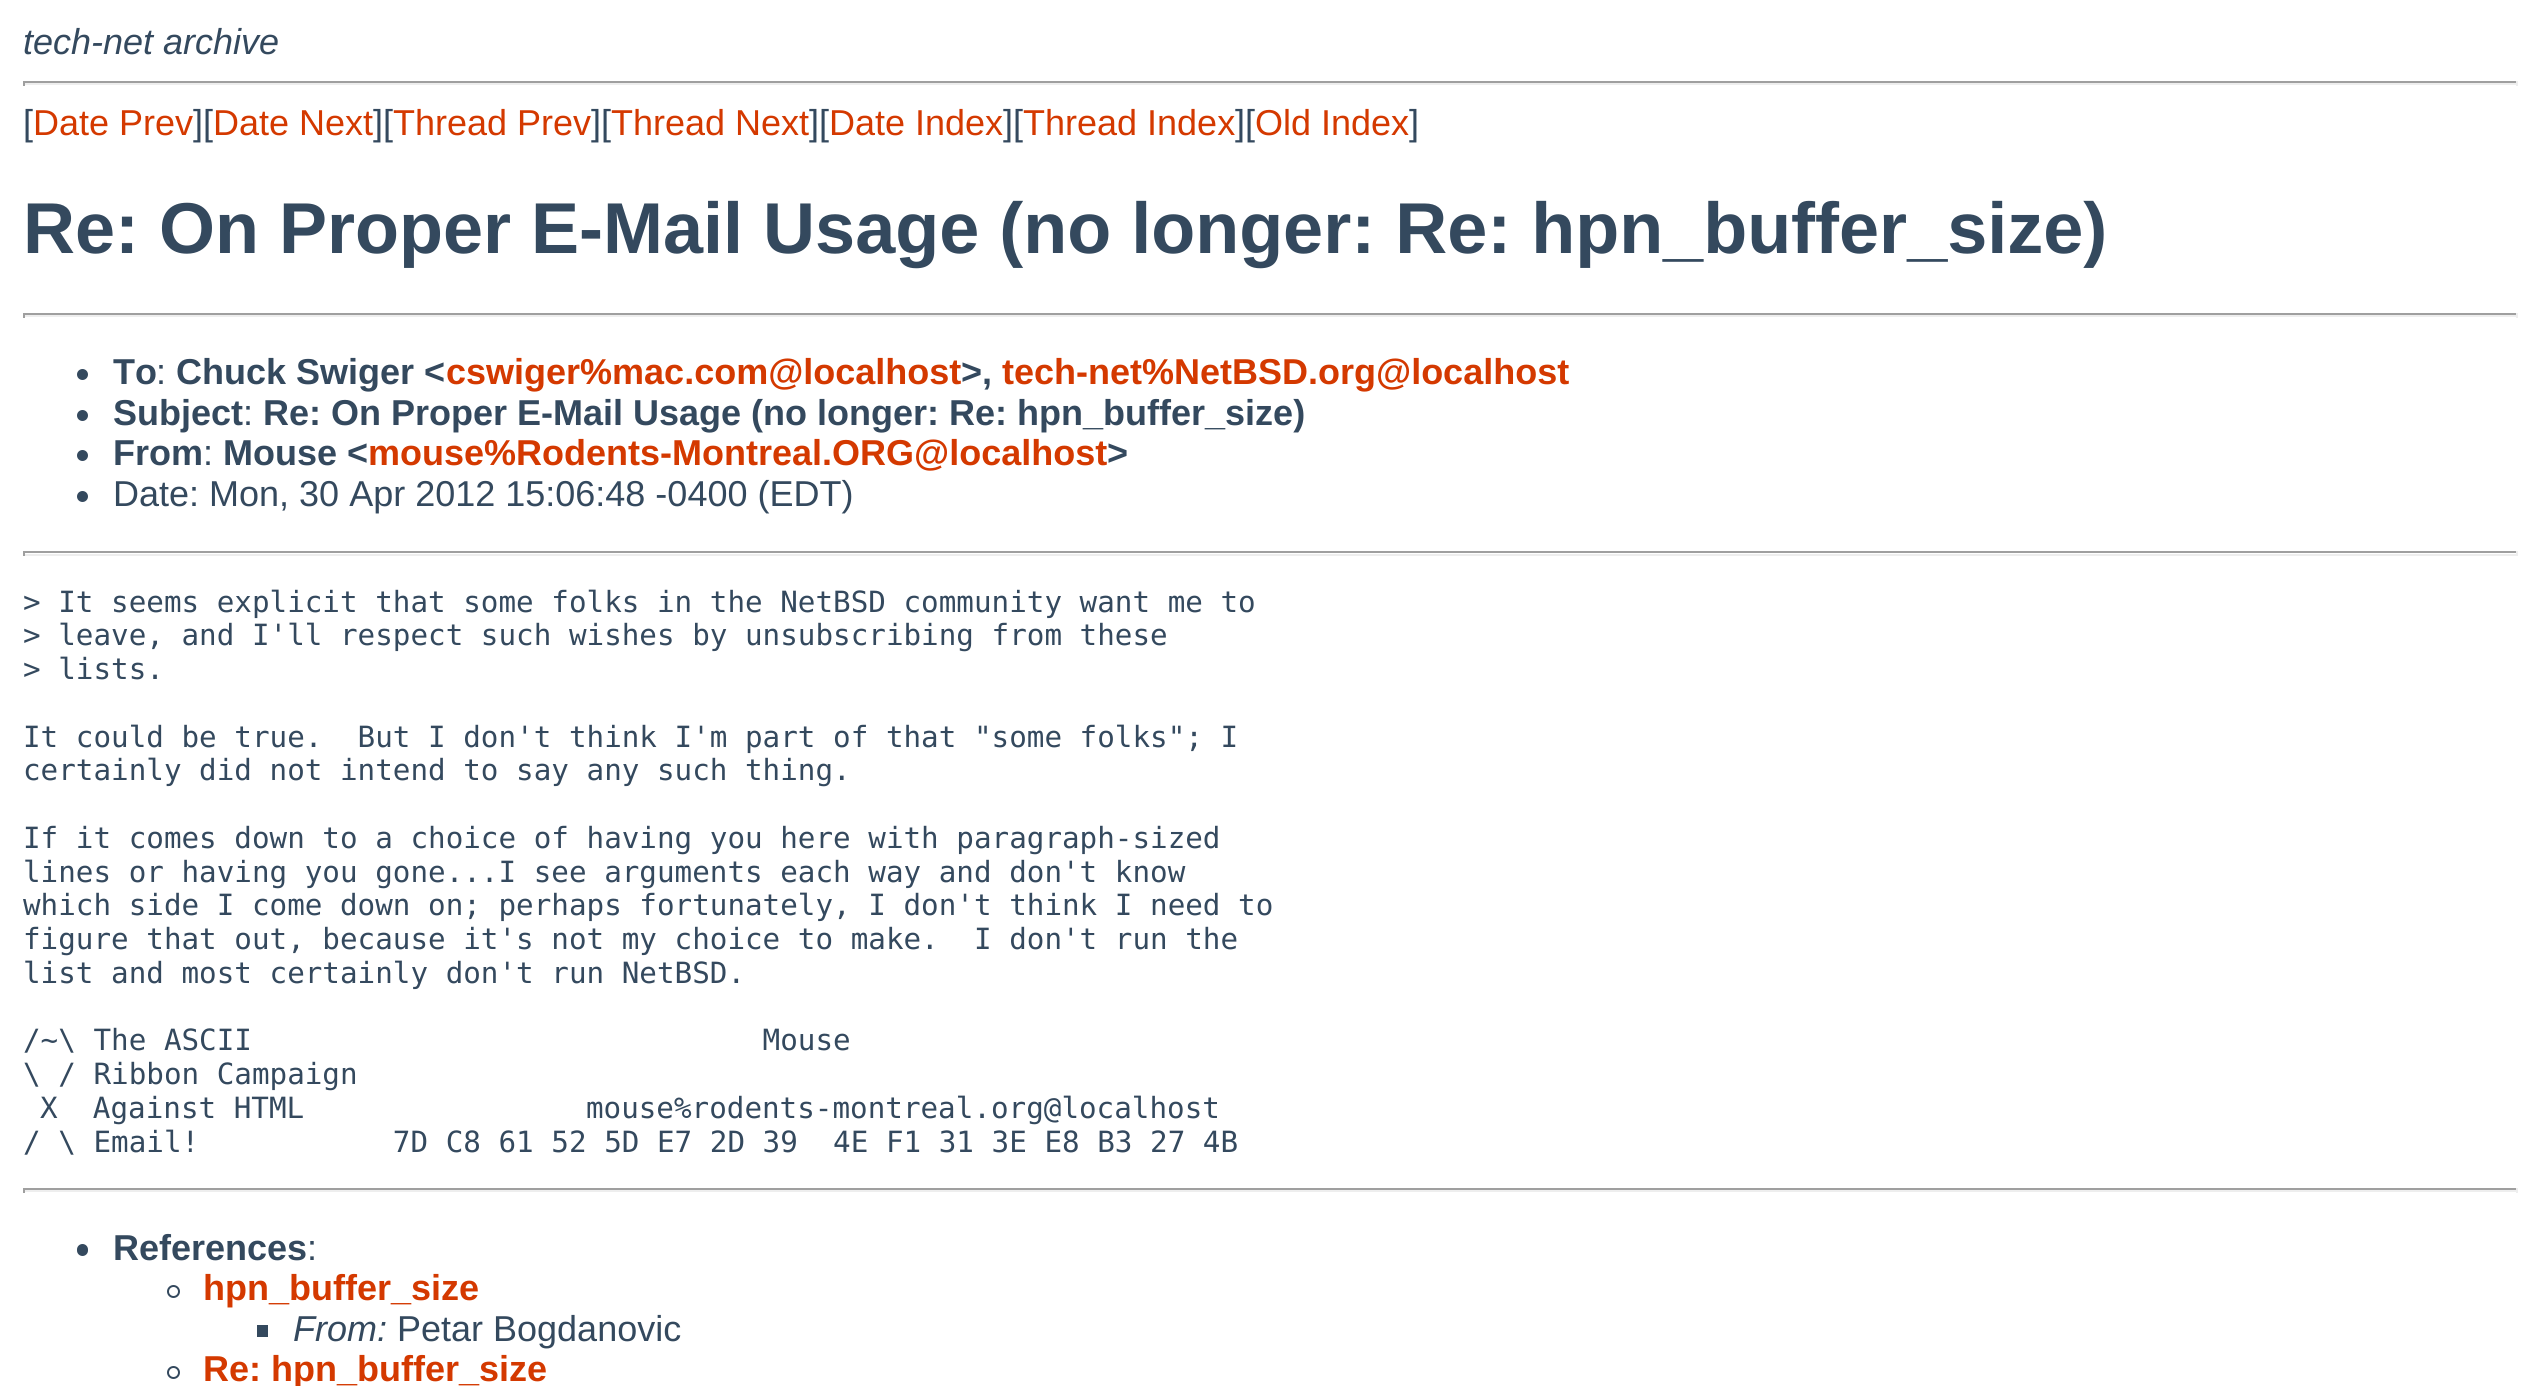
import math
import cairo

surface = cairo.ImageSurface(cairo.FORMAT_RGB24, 2540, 1386)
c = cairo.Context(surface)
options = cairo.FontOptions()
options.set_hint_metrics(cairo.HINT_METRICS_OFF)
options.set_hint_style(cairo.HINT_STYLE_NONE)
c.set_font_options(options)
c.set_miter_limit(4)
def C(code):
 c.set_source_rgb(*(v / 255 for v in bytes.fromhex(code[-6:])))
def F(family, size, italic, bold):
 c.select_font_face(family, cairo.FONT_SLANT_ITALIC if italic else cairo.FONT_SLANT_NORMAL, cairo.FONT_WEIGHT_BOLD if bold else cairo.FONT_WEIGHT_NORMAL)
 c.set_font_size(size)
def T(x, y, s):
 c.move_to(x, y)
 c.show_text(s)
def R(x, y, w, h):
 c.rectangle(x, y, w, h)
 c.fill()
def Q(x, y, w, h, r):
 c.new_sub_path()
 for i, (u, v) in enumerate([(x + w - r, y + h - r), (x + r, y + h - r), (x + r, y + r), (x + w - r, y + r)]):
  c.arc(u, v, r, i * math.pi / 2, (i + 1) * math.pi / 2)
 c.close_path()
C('ffffff')
c.paint()
F('Liberation Sans',36,1,0)
C('34495e')
T(23,54,'tech-net archive')
C('9f9f9f')
R(23,81,2495,2)
C('eeeeee')
R(2516,81,2,5)
R(23,83,2495,2)
C('9f9f9f')
R(23,81,2,5)
F('Liberation Sans',36,0,0)
C('34495e')
T(23,135,'[')
C('d43900')
T(33,135,'Date Prev')
C('34495e')
T(193,135,'][')
C('d43900')
T(213,135,'Date Next')
C('34495e')
T(373,135,'][')
C('d43900')
T(393,135,'Thread Prev')
C('34495e')
T(591,135,'][')
C('d43900')
T(611,135,'Thread Next')
C('34495e')
T(809,135,'][')
C('d43900')
T(829,135,'Date Index')
C('34495e')
T(1003,135,'][')
C('d43900')
T(1023,135,'Thread Index')
C('34495e')
T(1235,135,'][')
C('d43900')
T(1255,135,'Old Index')
C('34495e')
T(1409,135,']')
F('Liberation Sans',72,0,1)
T(23,253,'Re: On Proper E-Mail Usage (no longer: Re: hpn_buffer_size)')
C('9f9f9f')
R(23,313,2495,2)
C('eeeeee')
R(2516,313,2,5)
R(23,315,2495,2)
C('9f9f9f')
R(23,313,2,5)
C('34495e')
c.new_path()
c.arc(82.5,374.5,5.5,0,2 * math.pi)
c.fill()
F('Liberation Sans',36,0,1)
T(113,384,'To')
F('Liberation Sans',36,0,0)
T(156,384,':')
F('Liberation Sans',36,0,1)
T(176,384,'Chuck Swiger <')
C('d43900')
T(446,384,'cswiger%mac.com@localhost')
C('34495e')
T(961,384,'>,')
C('d43900')
T(1002,384,'tech-net%NetBSD.org@localhost')
C('34495e')
c.new_path()
c.arc(82.5,415.5,5.5,0,2 * math.pi)
c.fill()
T(113,425,'Subject')
F('Liberation Sans',36,0,0)
T(243,425,':')
F('Liberation Sans',36,0,1)
T(263,425,'Re: On Proper E-Mail Usage (no longer: Re: hpn_buffer_size)')
c.new_path()
c.arc(82.5,455.5,5.5,0,2 * math.pi)
c.fill()
T(113,465,'From')
F('Liberation Sans',36,0,0)
T(203,465,':')
F('Liberation Sans',36,0,1)
T(223,465,'Mouse <')
C('d43900')
T(368,465,'mouse%Rodents-Montreal.ORG@localhost')
C('34495e')
T(1107,465,'>')
c.new_path()
c.arc(82.5,496.5,5.5,0,2 * math.pi)
c.fill()
F('Liberation Sans',36,0,0)
T(113,506,'Date: Mon, 30 Apr 2012 15:06:48 -0400 (EDT)')
C('9f9f9f')
R(23,551,2495,2)
C('eeeeee')
R(2516,551,2,5)
R(23,554,2495,2)
C('9f9f9f')
R(23,551,2,5)
F('DejaVu Sans Mono',29.25,0,0)
C('34495e')
T(23,612,'> It seems explicit that some folks in the NetBSD community want me to')
T(23,645,'> leave, and I\'ll respect such wishes by unsubscribing from these')
T(23,679,'> lists.')
T(23,747,'It could be true.  But I don\'t think I\'m part of that "some folks"; I')
T(23,780,'certainly did not intend to say any such thing.')
T(23,848,'If it comes down to a choice of having you here with paragraph-sized')
T(23,882,'lines or having you gone...I see arguments each way and don\'t know')
T(23,915,'which side I come down on; perhaps fortunately, I don\'t think I need to')
T(23,949,'figure that out, because it\'s not my choice to make.  I don\'t run the')
T(23,983,'list and most certainly don\'t run NetBSD.')
T(23,1050,'/~\\ The ASCII                             Mouse')
T(23,1084,'\\ / Ribbon Campaign')
T(40,1118,'X  Against HTML                mouse%rodents-montreal.org@localhost')
T(23,1152,'/ \\ Email!           7D C8 61 52 5D E7 2D 39  4E F1 31 3E E8 B3 27 4B')
C('9f9f9f')
R(23,1188,2495,2)
C('eeeeee')
R(2516,1188,2,5)
R(23,1190,2495,2)
C('9f9f9f')
R(23,1188,2,5)
C('34495e')
Q(77,1244,11,12,5.5)
c.fill()
F('Liberation Sans',36,0,1)
T(113,1260,'References')
F('Liberation Sans',36,0,0)
T(307,1260,':')
c.new_path()
c.arc(173.5,1291.5,5.5,0,2 * math.pi)
c.stroke()
F('Liberation Sans',36,0,1)
C('d43900')
T(203,1300,'hpn_buffer_size')
C('34495e')
R(257,1325,11,12)
F('Liberation Sans',36,1,0)
T(293,1341,'From:')
F('Liberation Sans',36,0,0)
T(397,1341,'Petar Bogdanovic')
c.new_path()
c.arc(173.5,1372.5,5.5,0,2 * math.pi)
c.stroke()
F('Liberation Sans',36,0,1)
C('d43900')
T(203,1381,'Re: hpn_buffer_size')
surface.write_to_png('o.png')
